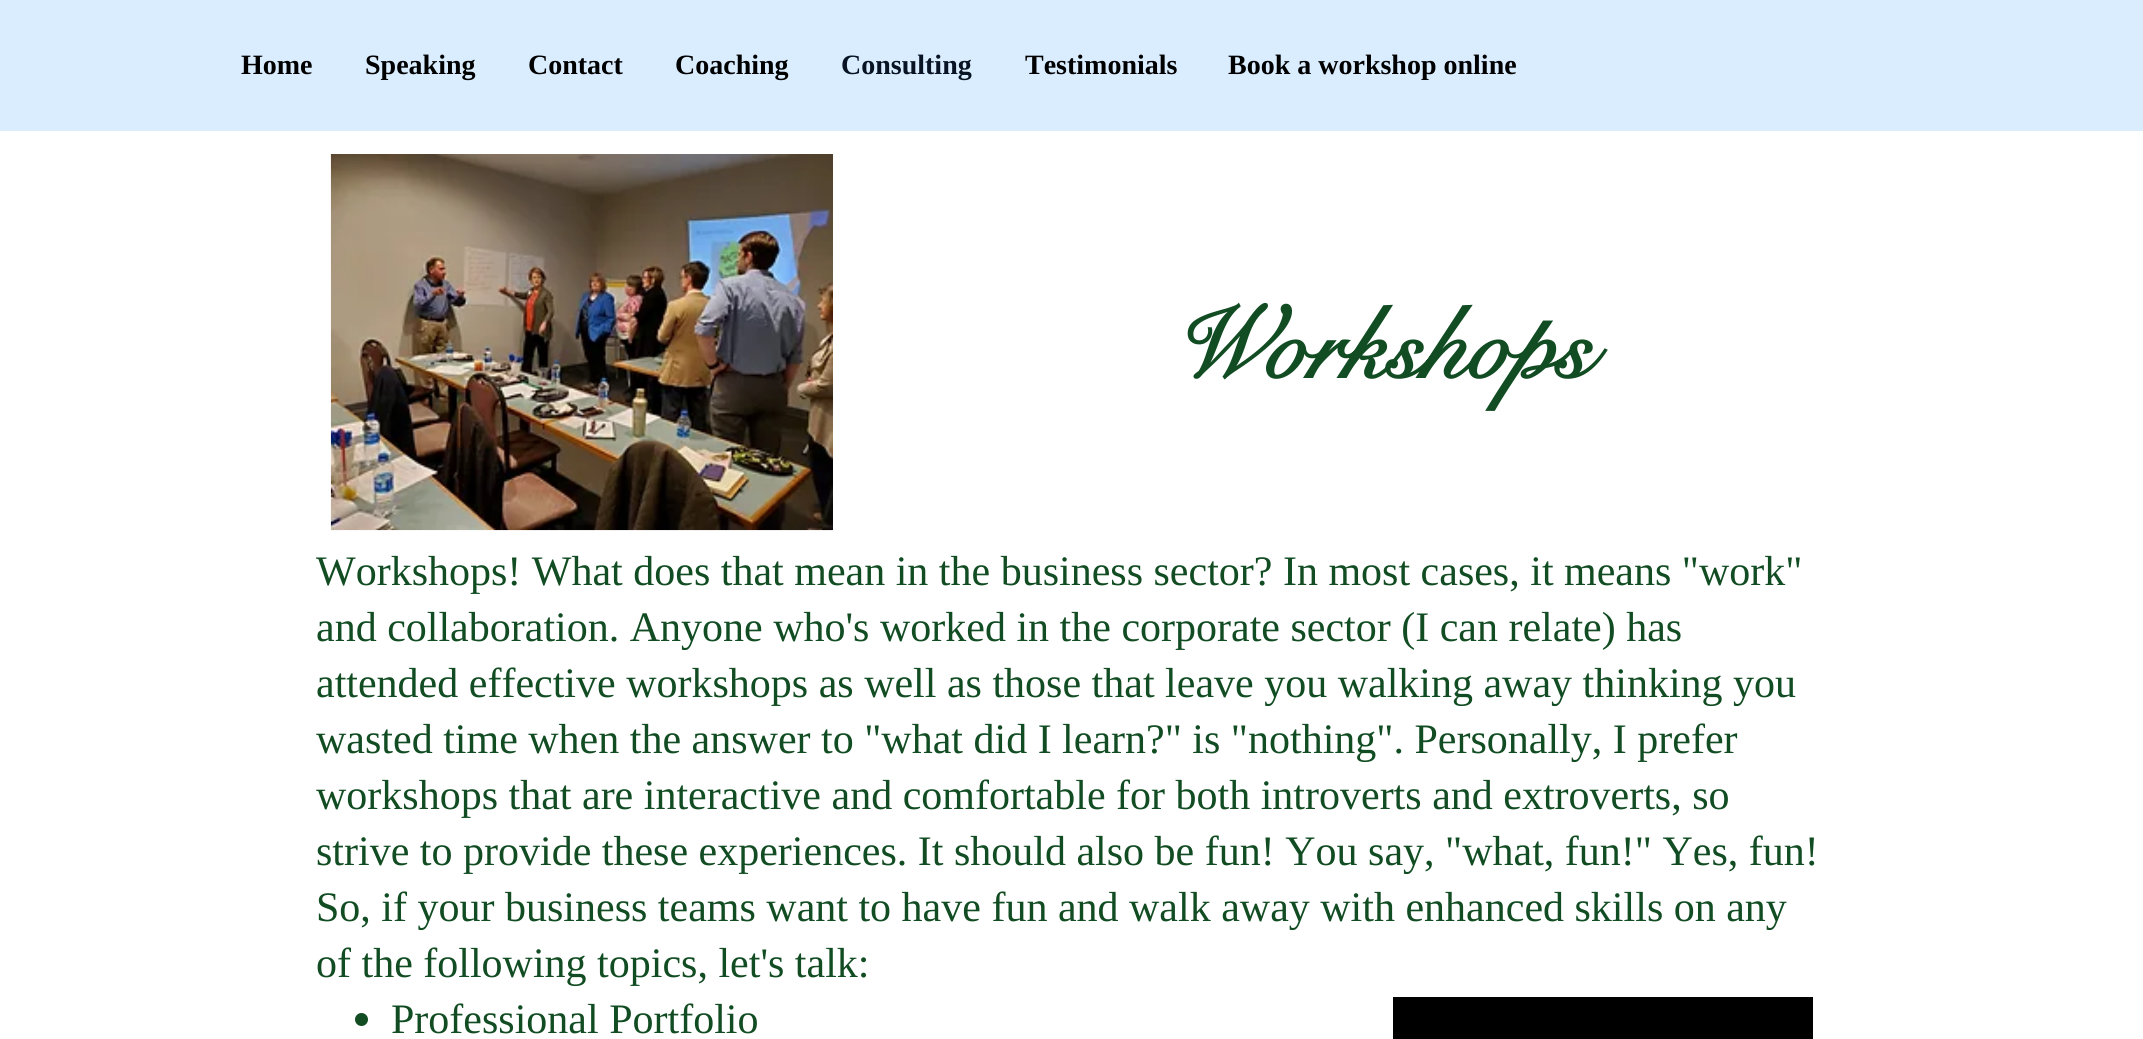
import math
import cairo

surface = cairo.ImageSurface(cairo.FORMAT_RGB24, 2143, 1039)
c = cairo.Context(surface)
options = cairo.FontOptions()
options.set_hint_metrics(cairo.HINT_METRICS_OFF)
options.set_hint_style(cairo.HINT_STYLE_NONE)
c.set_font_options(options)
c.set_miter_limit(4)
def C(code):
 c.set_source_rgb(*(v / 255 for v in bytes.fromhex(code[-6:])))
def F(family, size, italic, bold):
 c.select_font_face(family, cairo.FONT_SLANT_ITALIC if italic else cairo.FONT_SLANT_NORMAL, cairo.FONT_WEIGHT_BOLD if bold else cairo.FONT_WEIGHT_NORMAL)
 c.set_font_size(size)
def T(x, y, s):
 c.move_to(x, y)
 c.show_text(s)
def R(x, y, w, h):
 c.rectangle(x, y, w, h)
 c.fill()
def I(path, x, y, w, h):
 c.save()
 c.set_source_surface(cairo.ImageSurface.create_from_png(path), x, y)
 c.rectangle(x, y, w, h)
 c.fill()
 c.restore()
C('ffffff')
c.paint()
C('daedff')
R(0,0,2143,131)
F('Liberation Serif',28,0,1)
C('000000')
T(241,74,'Home')
T(365,74,'Speaking')
T(528,74,'Contact')
T(675,74,'Coaching')
C('081423')
T(841,74,'Consulting')
C('000000')
T(1025,74,'Testimonials')
T(1228,74,'Book a workshop online')
I('1.png',330,154,503,377)
F('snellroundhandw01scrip',101.5,0,1)
C('114c22')
T(1169,378,'Workshops')
F('Liberation Serif',42,0,0)
T(316,585,'Workshops! What does that mean in the business sector? In most cases, it means "work"')
T(316,641,'and collaboration. Anyone who\'s worked in the corporate sector (I can relate) has')
T(316,697,'attended effective workshops as well as those that leave you walking away thinking you')
T(316,753,'wasted time when the answer to "what did I learn?" is "nothing". Personally, I prefer')
T(316,809,'workshops that are interactive and comfortable for both introverts and extroverts, so')
T(316,865,'strive to provide these experiences. It should also be fun! You say, "what, fun!" Yes, fun!')
T(316,921,'So, if your business teams want to have fun and walk away with enhanced skills on any')
T(316,977,'of the following topics, let\'s talk:')
c.new_path()
c.arc(361.5,1019.5,6.5,0,2 * math.pi)
c.fill()
T(391,1033,'Professional Portfolio')
C('000000')
R(1393,997,420,42)
surface.write_to_png('o.png')
